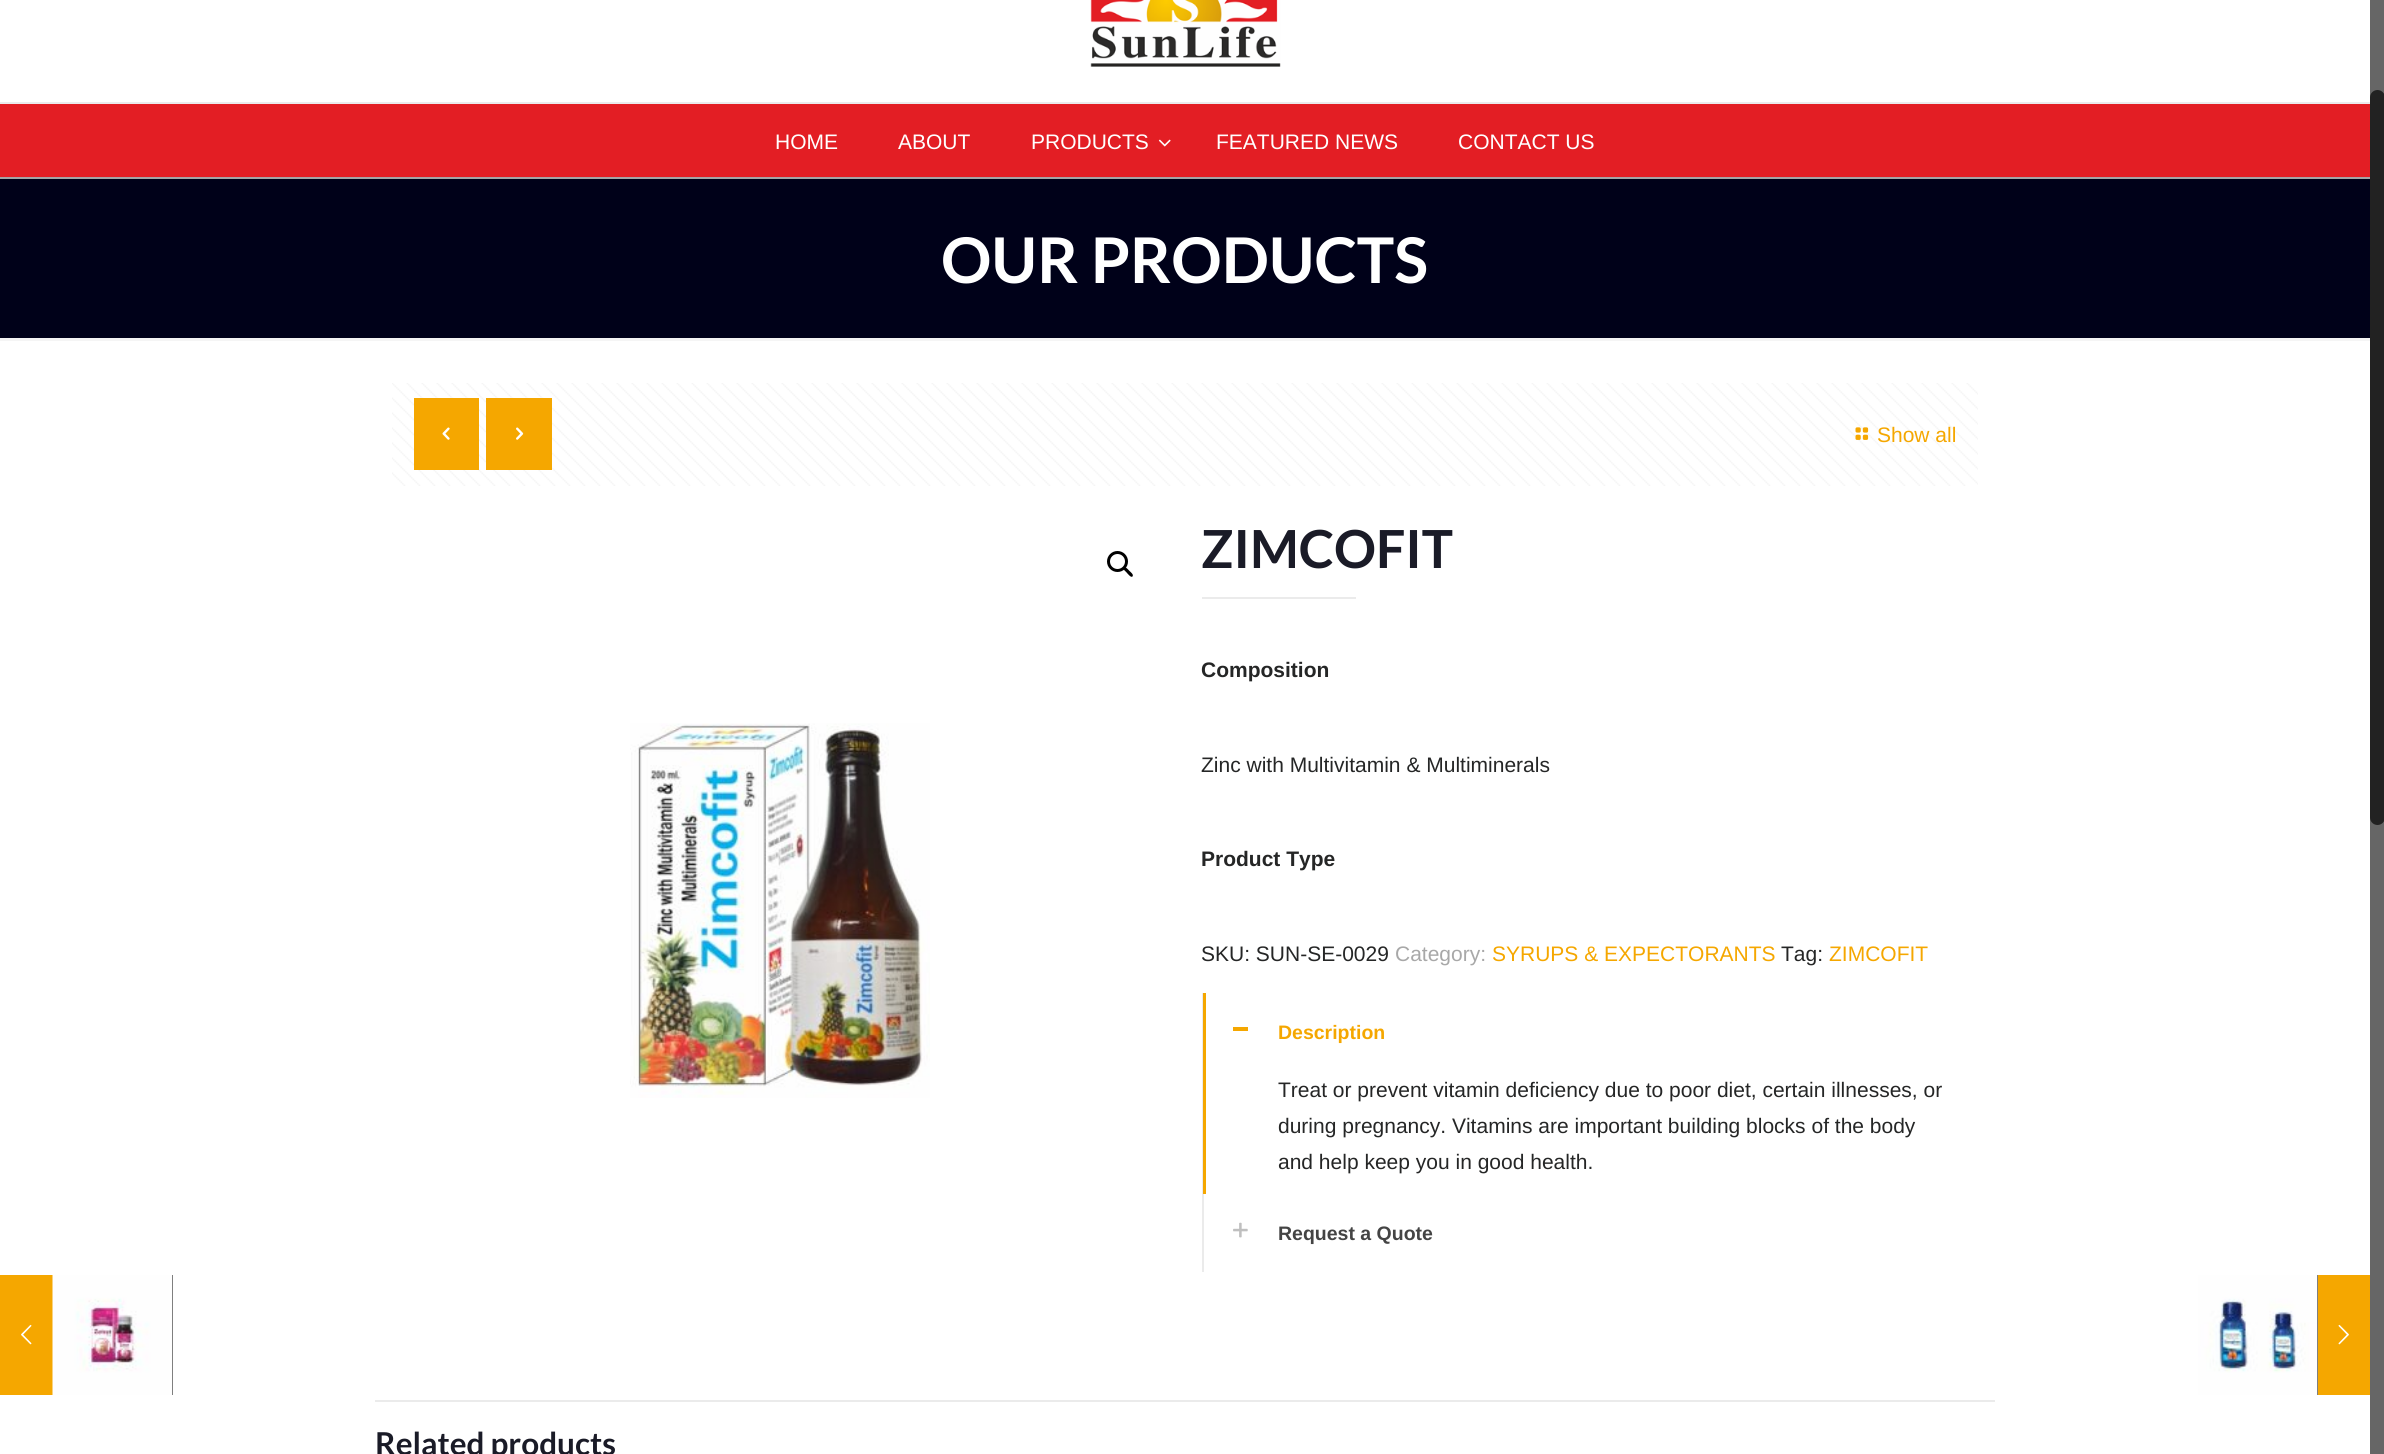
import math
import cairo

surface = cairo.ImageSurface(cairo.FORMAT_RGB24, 2384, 1454)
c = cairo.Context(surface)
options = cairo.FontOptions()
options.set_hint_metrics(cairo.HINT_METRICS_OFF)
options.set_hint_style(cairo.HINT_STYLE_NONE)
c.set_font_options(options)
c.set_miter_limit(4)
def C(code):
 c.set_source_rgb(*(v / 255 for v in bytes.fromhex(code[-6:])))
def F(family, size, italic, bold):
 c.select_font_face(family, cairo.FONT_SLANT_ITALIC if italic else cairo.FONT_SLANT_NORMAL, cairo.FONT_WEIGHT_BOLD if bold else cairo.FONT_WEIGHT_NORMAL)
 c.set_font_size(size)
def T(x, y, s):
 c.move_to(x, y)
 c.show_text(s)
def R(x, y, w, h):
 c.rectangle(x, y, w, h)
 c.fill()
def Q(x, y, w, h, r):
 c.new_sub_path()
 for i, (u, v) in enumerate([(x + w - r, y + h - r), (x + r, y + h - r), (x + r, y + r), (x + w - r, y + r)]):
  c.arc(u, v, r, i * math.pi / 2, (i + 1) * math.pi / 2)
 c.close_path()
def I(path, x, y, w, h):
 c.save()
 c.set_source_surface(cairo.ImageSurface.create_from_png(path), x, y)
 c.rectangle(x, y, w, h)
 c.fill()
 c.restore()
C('ffffff')
c.paint()
C('f5a700')
R(0,1275,53,120)
I('1.png',21,1324,11,21)
C('000000')
R(172,1275,1,120)
I('2.png',52,1275,121,120)
C('000119')
R(0,179,2370,159)
C('a5a5a6')
R(0,177,2370,2)
C('ebebeb')
R(0,102,2370,2)
I('3.png',1090,0,191,67)
C('e31e24')
R(0,104,2370,73)
F('Liberation Sans',21,0,0)
C('ffffff')
T(775,149,'HOME')
T(898,149,'ABOUT')
T(1031,149,'PRODUCTS')
I('4.png',1158,139,13,8)
T(1216,149,'FEATURED NEWS')
T(1458,149,'CONTACT US')
F('Lato',63,0,1)
T(941,283,'OUR PRODUCTS')
C('f5f5f5')
R(0,338,2370,3)
I('5.png',392,383,1586,103)
C('f5a700')
R(414,398,65,72)
I('6.png',442,427,8,13)
R(486,398,66,72)
I('7.png',516,427,8,13)
I('8.png',1855,427,14,13)
F('Liberation Sans',21,0,0)
T(1877,442,'Show all')
c.new_path()
c.arc(1117.5,561.5,9,0,2 * math.pi)
C('000000')
c.set_line_width(3)
c.stroke()
c.new_path()
c.move_to(1124,568)
c.curve_to(1125.5,566,1128.5,570,1129.5,571)
c.curve_to(1130.5,572,1134,574.5,1132.5,576.5)
c.curve_to(1131,578,1128,574,1127,573)
c.curve_to(1126.5,572,1122.5,569.5,1124,568)
c.close_path()
c.fill()
I('9.png',630,723,300,375)
F('Lato',52.5,0,1)
C('1a1b27')
T(1201,568,'ZIMCOFIT')
C('ebebeb')
R(1202,597,154,2)
F('Liberation Sans',21,0,1)
C('252626')
T(1201,677,'Composition')
F('Liberation Sans',21,0,0)
T(1201,772,'Zinc with Multivitamin & Multiminerals')
F('Liberation Sans',21,0,1)
T(1201,866,'Product Type')
F('Liberation Sans',21,0,0)
T(1201,961,'SKU: SUN-SE-0029')
C('a8a8a8')
T(1395,961,'Category:')
C('f5a700')
T(1492,961,'SYRUPS & EXPECTORANTS')
C('252626')
T(1781,961,'Tag:')
C('f5a700')
T(1829,961,'ZIMCOFIT')
C('ebebeb')
R(1202,993,1,201)
C('f5a700')
R(1203,993,3,201)
R(1233,1027,15,4)
F('Liberation Sans',19.5,0,1)
T(1278,1039,'Description')
F('Liberation Sans',21,0,0)
C('252626')
T(1278,1097,'Treat or prevent vitamin deficiency due to poor diet, certain illnesses, or')
T(1278,1133,'during pregnancy. Vitamins are important building blocks of the body')
T(1278,1169,'and help keep you in good health.')
C('ebebeb')
R(1202,1194,2,78)
I('10.png',1233,1222,15,16)
F('Liberation Sans',19.5,0,1)
C('444444')
T(1278,1240,'Request a Quote')
C('ebebeb')
R(375,1400,1620,2)
F('Lato',31.5,0,1)
C('1a1b27')
T(375,1455,'Related products')
C('000000')
R(2317,1275,1,120)
I('11.png',2198,1275,120,120)
C('f5a700')
R(2318,1275,52,120)
I('12.png',2338,1324,11,21)
C('666666')
R(2370,0,14,1454)
C('222222')
Q(2370,90,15,735,7.5)
c.fill()
surface.write_to_png('o.png')
